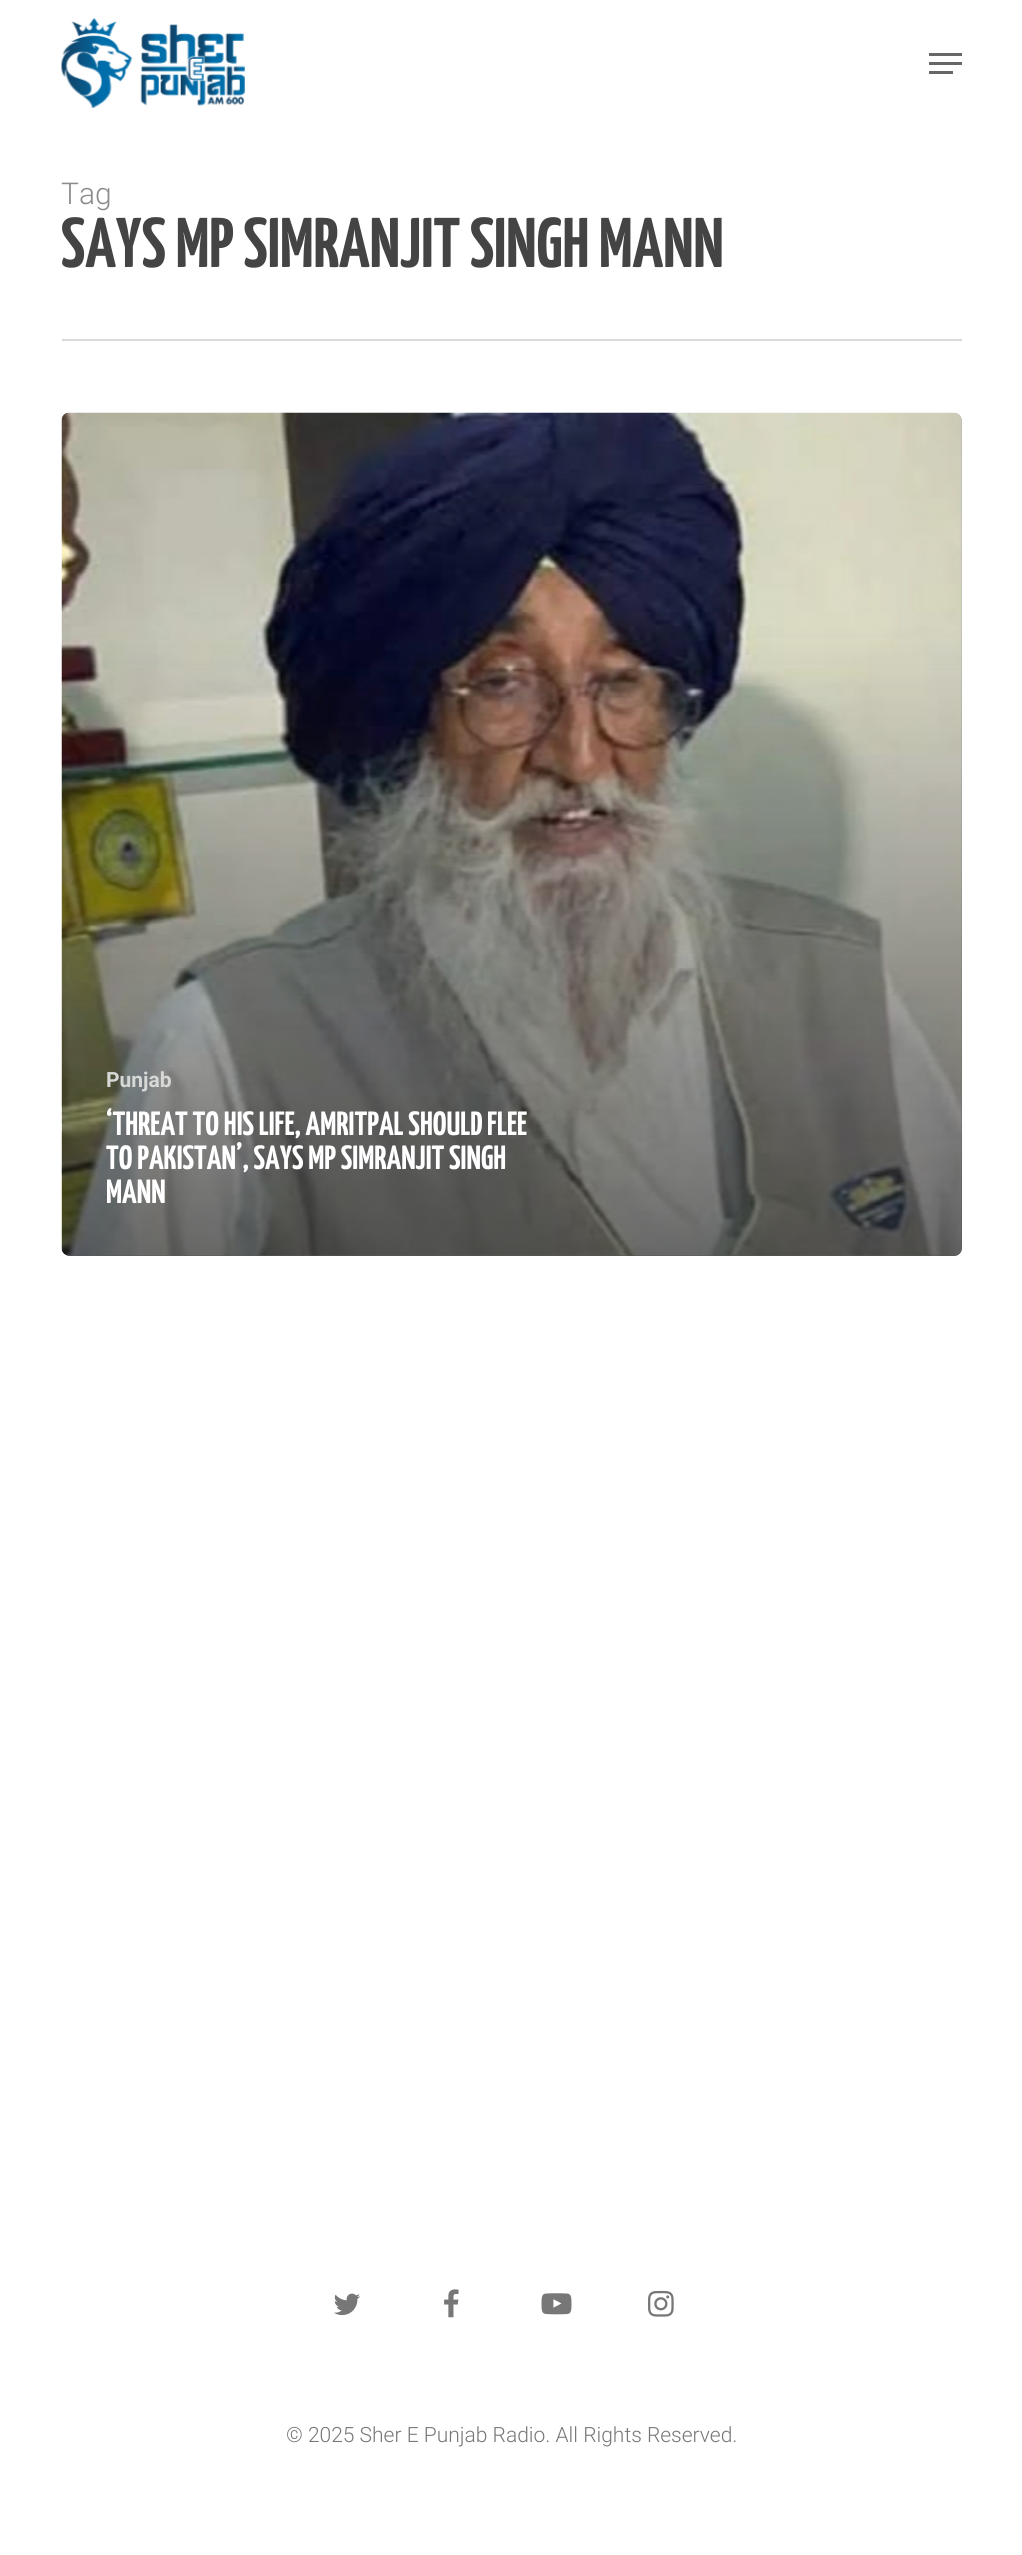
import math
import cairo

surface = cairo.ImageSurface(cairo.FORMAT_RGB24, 1022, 2555)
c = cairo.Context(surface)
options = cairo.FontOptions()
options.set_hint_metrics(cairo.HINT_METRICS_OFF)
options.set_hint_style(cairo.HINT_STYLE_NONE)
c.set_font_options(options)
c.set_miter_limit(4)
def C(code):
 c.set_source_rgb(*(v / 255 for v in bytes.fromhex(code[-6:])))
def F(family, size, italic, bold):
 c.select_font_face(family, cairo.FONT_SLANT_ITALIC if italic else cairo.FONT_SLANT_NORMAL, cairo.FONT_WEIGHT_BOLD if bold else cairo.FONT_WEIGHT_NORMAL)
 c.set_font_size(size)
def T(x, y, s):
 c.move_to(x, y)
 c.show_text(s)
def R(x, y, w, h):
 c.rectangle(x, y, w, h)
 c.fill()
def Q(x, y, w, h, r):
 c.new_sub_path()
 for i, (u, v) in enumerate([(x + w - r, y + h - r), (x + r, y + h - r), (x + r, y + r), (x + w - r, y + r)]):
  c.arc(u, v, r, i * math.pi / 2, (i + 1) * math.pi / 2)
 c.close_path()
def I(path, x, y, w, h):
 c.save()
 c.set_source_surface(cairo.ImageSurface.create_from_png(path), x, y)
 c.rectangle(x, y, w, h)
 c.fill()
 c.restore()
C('ffffff')
c.paint()
I('1.png',61,18,184,90)
C('676767')
R(929,53,33,3)
R(929,71,24,3)
R(929,62,33,3)
C('d9d9d9')
R(62,339,900,2)
F('Roboto Light',30,0,0)
C('8c8c8c')
T(61,204,'Tag')
F('Yanone Kaffeesatz',70.25,0,1)
C('444444')
T(61,267,'SAYS MP SIMRANJIT SINGH MANN')
C('b3b3b3')
Q(62,413,900,843,8)
c.fill()
I('2.png',61,412,901,844)
gradient = cairo.LinearGradient(514,624,514,1260)
gradient.add_color_stop_rgba(0,0.137,0.137,0.137,0)
gradient.add_color_stop_rgba(1,0.137,0.137,0.137,.65)
c.set_source(gradient)
c.new_path()
c.move_to(62,624)
c.line_to(962,624)
c.line_to(962,1248)
c.curve_to(962,1252.5,958.5,1256,954,1256)
c.line_to(70,1256)
c.curve_to(65.5,1256,62,1252.5,62,1248)
c.close_path()
c.fill()
F('Roboto',21,0,1)
C('d7d9d7')
T(106,1087,'Punjab')
F('Yanone Kaffeesatz',33.6,0,1)
C('ffffff')
T(106,1135,'‘THREAT TO HIS LIFE, AMRITPAL SHOULD FLEE')
T(106,1169,'TO PAKISTAN’, SAYS MP SIMRANJIT SINGH')
T(106,1203,'MANN')
I('3.png',334,2293,26,23)
I('4.png',444,2289,15,29)
I('5.png',541,2293,31,22)
I('6.png',648,2290,26,27)
F('Roboto Light',21,0,0)
C('777777')
T(286,2442,'© 2025 Sher E Punjab Radio. All Rights Reserved.')
surface.write_to_png('o.png')
